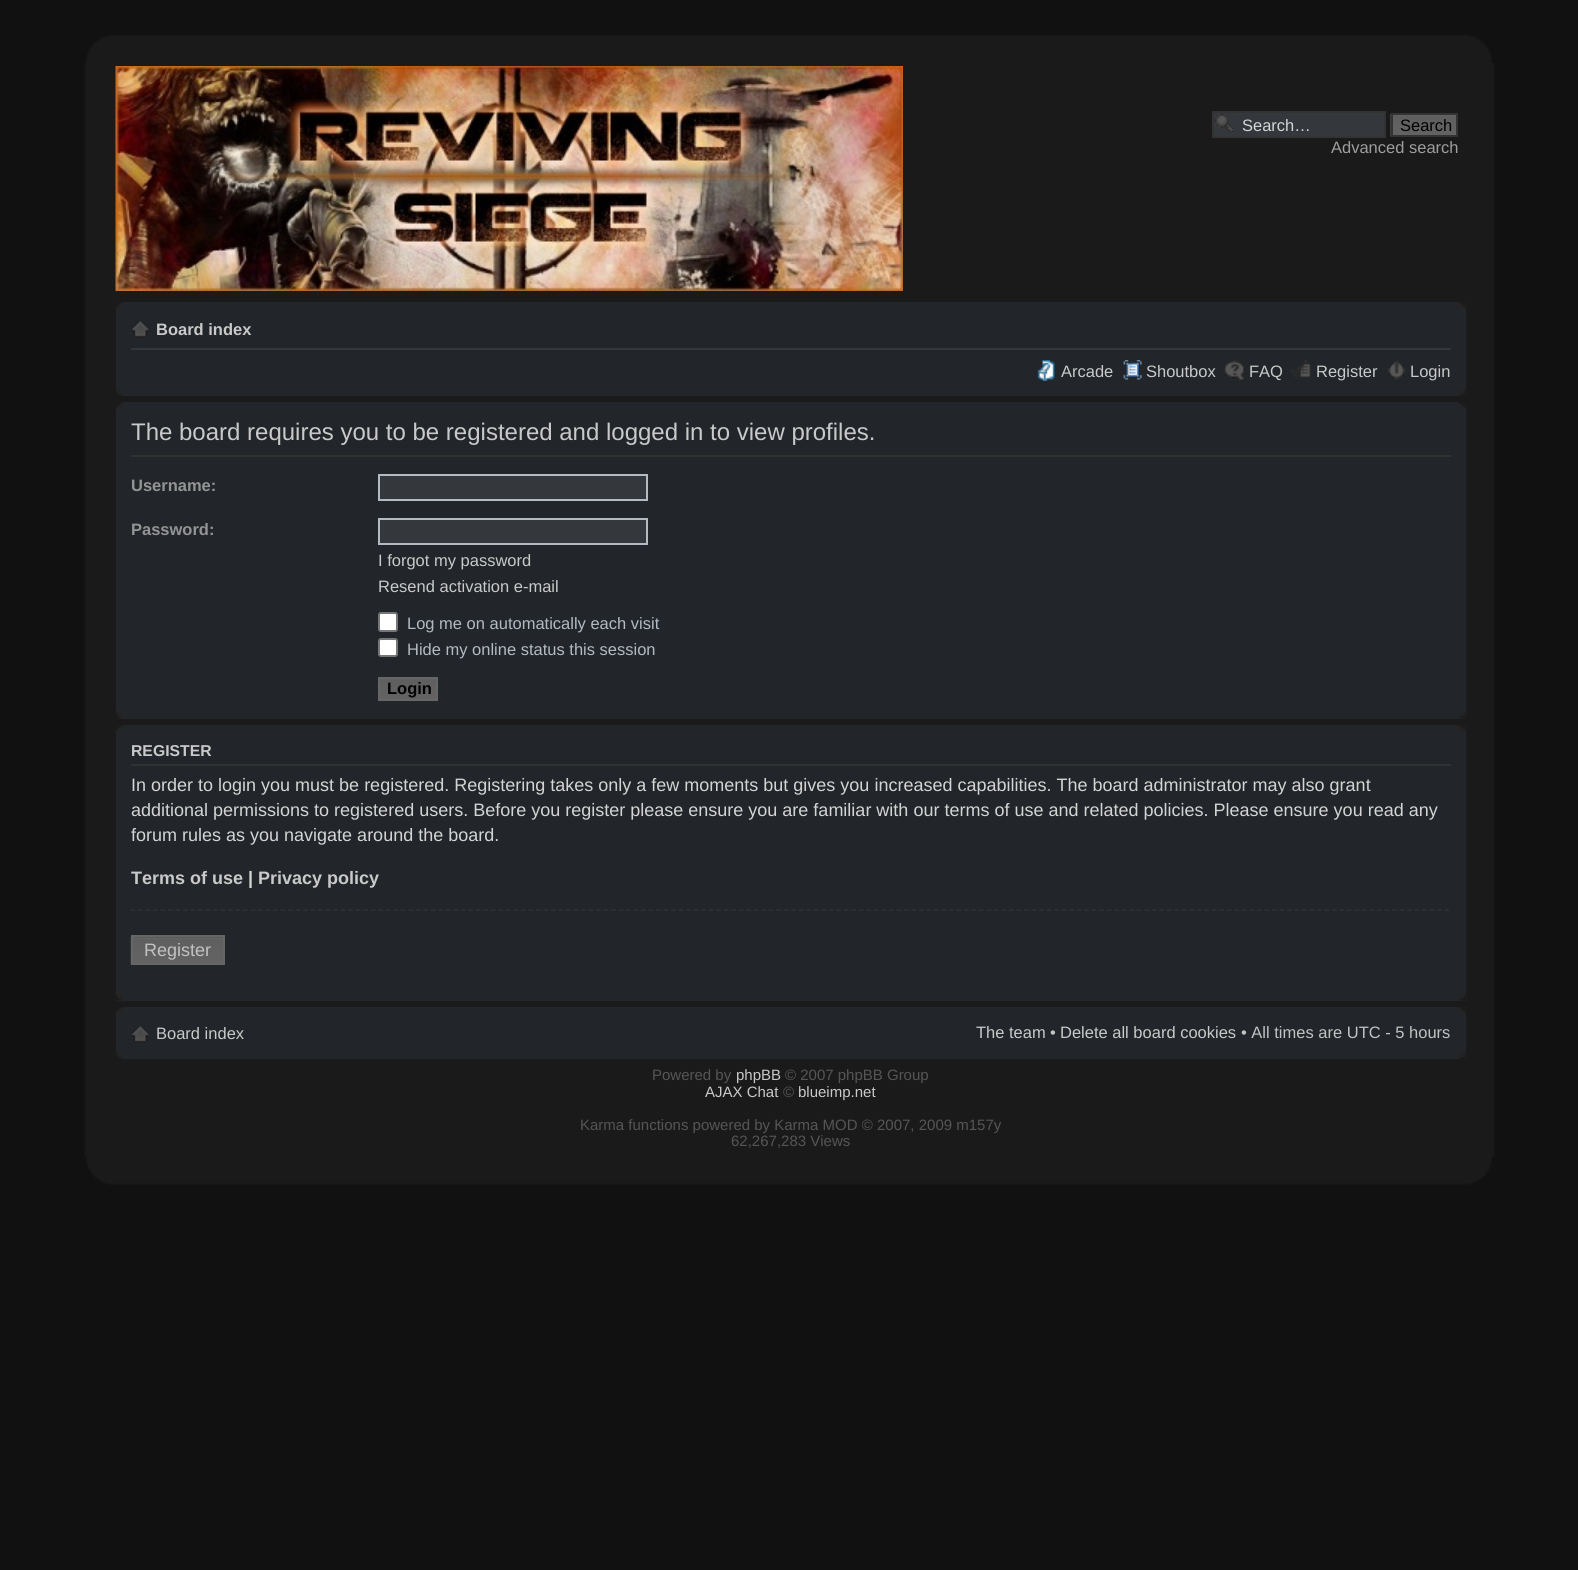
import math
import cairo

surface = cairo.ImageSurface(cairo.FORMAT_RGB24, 1578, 1570)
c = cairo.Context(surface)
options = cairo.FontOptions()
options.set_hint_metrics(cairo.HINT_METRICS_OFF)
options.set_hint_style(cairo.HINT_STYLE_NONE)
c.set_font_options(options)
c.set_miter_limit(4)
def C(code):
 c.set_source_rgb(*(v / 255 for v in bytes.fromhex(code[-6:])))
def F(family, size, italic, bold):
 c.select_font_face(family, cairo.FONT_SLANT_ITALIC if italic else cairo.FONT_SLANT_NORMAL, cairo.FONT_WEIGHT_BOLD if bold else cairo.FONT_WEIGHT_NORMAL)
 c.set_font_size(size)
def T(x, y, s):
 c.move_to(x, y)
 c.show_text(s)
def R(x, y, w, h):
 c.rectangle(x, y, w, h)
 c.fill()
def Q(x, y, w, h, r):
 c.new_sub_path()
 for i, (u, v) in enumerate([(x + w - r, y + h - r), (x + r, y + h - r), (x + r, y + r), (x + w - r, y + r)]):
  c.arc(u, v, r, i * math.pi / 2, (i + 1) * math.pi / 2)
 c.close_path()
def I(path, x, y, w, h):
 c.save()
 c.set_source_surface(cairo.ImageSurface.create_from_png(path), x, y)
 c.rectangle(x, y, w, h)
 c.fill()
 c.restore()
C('111111')
c.paint()
I('1.png',86,35,1378,28)
I('2.png',1464,35,28,28)
C('1a1a1a')
R(86,63,1407,1094)
C('161616')
R(1493,63,2,1094)
R(84,63,2,1094)
I('3.png',115,66,788,225)
C('34383c')
R(1214,113,170,23)
I('4.png',1215,114,20,20)
c.rectangle(1213,112,172,25)
C('333333')
c.stroke()
F('Liberation Sans',16.5,0,0)
C('d4d4d4')
T(1242,131,'Search…')
I('5.png',1390,114,66,23)
c.rectangle(1392,114,65,22)
C('333333')
c.stroke()
C('000000')
T(1400,131,'Search')
C('9e9e9e')
T(1331,153,'Advanced search')
C('22262a')
R(116,302,1350,94)
I('6.png',115,302,8,7)
I('7.png',1458,302,8,7)
C('34383c')
R(131,348,1320,2)
I('8.png',131,319,19,19)
F('Liberation Sans',16.5,0,1)
C('c9c9c9')
T(156,335,'Board index')
I('9.png',1037,360,18,21)
F('Liberation Sans',16.5,0,0)
T(1061,377,'Arcade')
I('10.png',1123,360,19,20)
T(1146,377,'Shoutbox')
I('11.png',1224,360,21,21)
T(1249,377,'FAQ')
I('12.png',1290,360,21,18)
T(1316,377,'Register')
I('13.png',1387,361,19,19)
T(1410,377,'Login')
I('14.png',115,389,8,7)
I('15.png',1458,389,8,7)
C('22262a')
R(116,402,1350,317)
I('16.png',115,402,8,7)
I('17.png',1458,402,8,7)
C('313131')
R(131,455,1320,2)
F('Liberation Sans',24,0,0)
C('c9c9c9')
T(131,440,'The board requires you to be registered and logged in to view profiles.')
F('Liberation Sans',16.5,0,1)
C('949494')
T(131,491,'Username:')
C('34383c')
c.rectangle(379,475,268,25)
c.fill_preserve()
C('b4bac0')
c.stroke()
C('949494')
T(131,535,'Password:')
C('34383c')
c.rectangle(379,519,268,25)
c.fill_preserve()
C('b4bac0')
c.stroke()
F('Liberation Sans',16.5,0,0)
C('c9c9c9')
T(378,566,'I forgot my password')
T(378,592,'Resend activation e-mail')
C('ffffff')
Q(379,613,18,18,2)
c.fill_preserve()
C('767676')
c.stroke()
C('b4bac0')
T(407,629,'Log me on automatically each visit')
C('ffffff')
Q(379,639,18,17,2)
c.fill_preserve()
C('767676')
c.stroke()
C('b4bac0')
T(407,655,'Hide my online status this session')
I('18.png',380,679,56,20)
c.rectangle(379,678,58,22)
C('666666')
c.stroke()
F('Liberation Sans',16.5,0,1)
C('000000')
T(387,694,'Login')
I('19.png',115,711,8,8)
I('20.png',1458,711,8,8)
C('22262a')
R(116,725,1350,276)
I('6.png',115,725,8,7)
I('7.png',1458,725,8,7)
C('313131')
R(131,764,1320,2)
F('Liberation Sans',15.75,0,1)
C('c9c9c9')
T(131,756,'REGISTER')
F('Liberation Sans',18,0,0)
C('d4d4d4')
T(131,791,'In order to login you must be registered. Registering takes only a few moments but gives you increased capabilities. The board administrator may also grant')
T(131,816,'additional permissions to registered users. Before you register please ensure you are familiar with our terms of use and related policies. Please ensure you read any')
T(131,841,'forum rules as you navigate around the board.')
c.save()
c.rectangle(131,732,1320,261)
c.clip()
F('Liberation Sans',18,0,1)
C('c9c9c9')
T(131,884,'Terms of use')
c.restore()
F('Liberation Sans',18,0,1)
T(248,884,'|')
C('c9c9c9')
T(258,884,'Privacy policy')
c.new_path()
c.move_to(130.5,910)
c.line_to(1450.5,910)
C('313131')
c.set_line_width(1.5)
c.set_dash([4.5,3.01])
c.stroke()
C('4c4c4c')
R(133,937,90,1)
I('21.png',130,937,93,28)
c.rectangle(132,936,92,28)
C('666666')
c.set_line_width(2)
c.set_dash([])
c.stroke()
F('Liberation Sans',18,0,0)
C('c2c2c2')
T(144,956,'Register')
I('19.png',115,993,8,8)
I('20.png',1458,993,8,8)
C('22262a')
R(116,1007,1350,52)
I('6.png',115,1007,8,7)
I('7.png',1458,1007,8,7)
I('8.png',131,1024,19,19)
F('Liberation Sans',16.5,0,0)
C('c9c9c9')
T(156,1039,'Board index')
T(976,1038,'The team')
C('c2c2c2')
T(1050,1038,'•')
C('c9c9c9')
T(1060,1038,'Delete all board cookies')
C('c2c2c2')
T(1241,1038,'• All times are UTC - 5 hours')
I('14.png',115,1052,8,7)
I('15.png',1458,1052,8,7)
F('Liberation Sans',15,0,0)
C('555555')
T(652,1080,'Powered by')
C('c9c9c9')
T(736,1080,'phpBB')
C('555555')
T(785,1080,'© 2007 phpBB Group')
C('c9c9c9')
T(705,1097,'AJAX Chat')
C('555555')
T(783,1097,'©')
C('c9c9c9')
T(798,1097,'blueimp.net')
C('555555')
T(580,1130,'Karma functions powered by Karma MOD © 2007, 2009 m157y')
T(731,1146,'62,267,283 Views')
I('22.png',86,1157,1378,28)
I('23.png',1464,1157,28,28)
surface.write_to_png('o.png')
